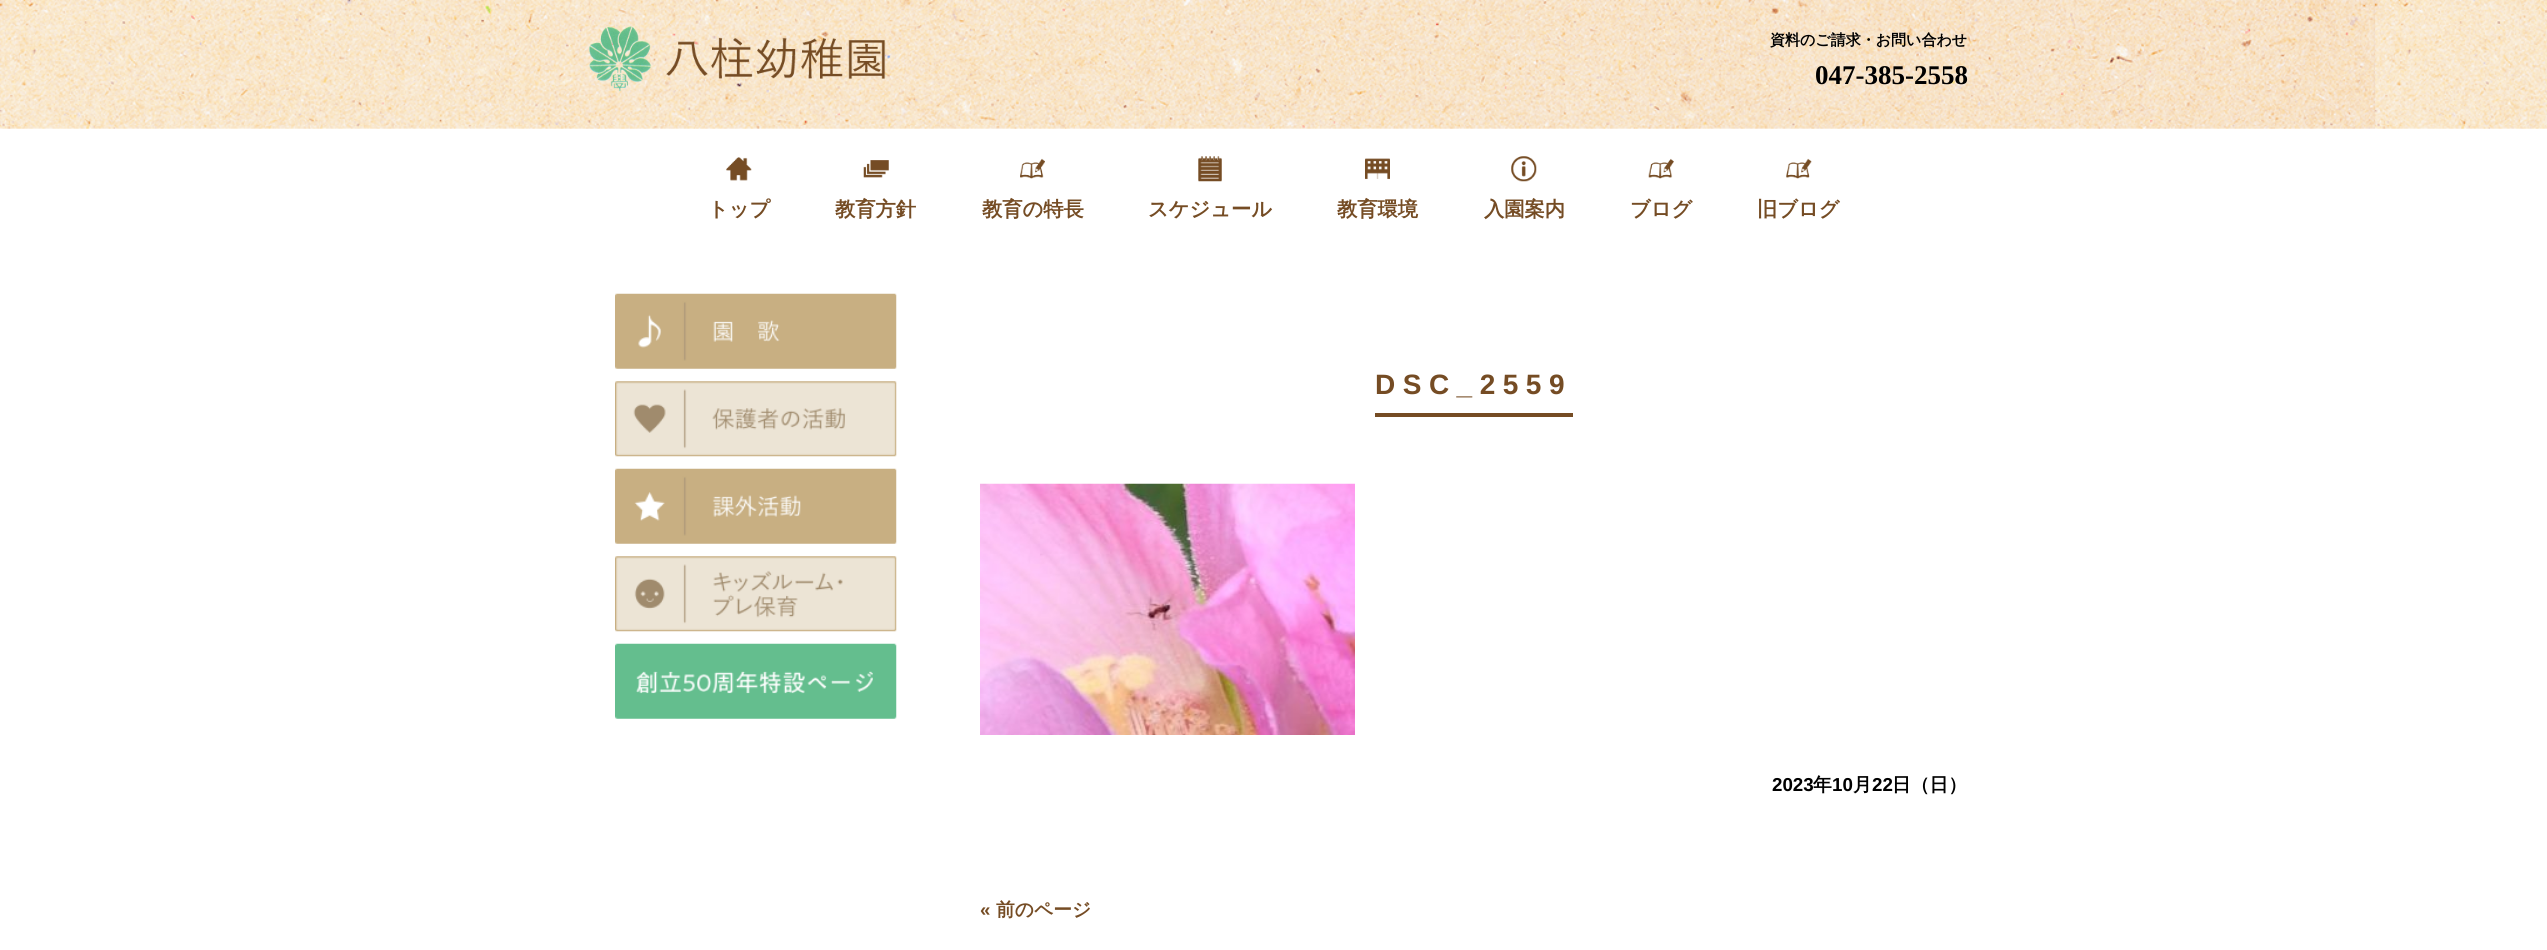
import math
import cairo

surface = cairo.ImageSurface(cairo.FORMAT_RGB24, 2547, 950)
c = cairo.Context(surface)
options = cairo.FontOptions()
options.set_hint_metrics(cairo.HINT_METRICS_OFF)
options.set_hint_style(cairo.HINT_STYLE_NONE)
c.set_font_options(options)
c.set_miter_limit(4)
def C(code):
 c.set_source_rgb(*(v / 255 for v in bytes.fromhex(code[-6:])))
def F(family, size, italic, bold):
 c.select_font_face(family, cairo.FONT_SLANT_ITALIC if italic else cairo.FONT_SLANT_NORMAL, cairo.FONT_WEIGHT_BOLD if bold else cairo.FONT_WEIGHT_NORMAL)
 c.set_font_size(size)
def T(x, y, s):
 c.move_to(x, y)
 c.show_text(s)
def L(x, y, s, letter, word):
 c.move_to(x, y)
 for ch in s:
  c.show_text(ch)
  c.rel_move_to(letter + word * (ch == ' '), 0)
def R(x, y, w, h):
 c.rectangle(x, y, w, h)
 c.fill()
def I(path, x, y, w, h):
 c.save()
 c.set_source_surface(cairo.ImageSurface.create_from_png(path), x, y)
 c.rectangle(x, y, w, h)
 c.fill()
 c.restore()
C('ffffff')
c.paint()
I('1.png',0,0,2547,129)
I('2.png',589,26,297,66)
F('WenQuanYi Zen Hei',15,0,1)
C('000000')
T(1770,45,'資料のご請求・お問い合わせ')
F('Liberation Serif',27,0,1)
T(1815,84,'047-385-2558')
I('3.png',726,157,26,24)
F('WenQuanYi Zen Hei',20.25,0,1)
C('754c24')
T(708,216,'トップ')
I('4.png',863,160,26,18)
T(835,216,'教育方針')
I('5.png',1020,158,25,21)
T(982,216,'教育の特長')
I('6.png',1198,156,24,26)
T(1148,216,'スケジュール')
I('7.png',1365,158,25,22)
T(1337,216,'教育環境')
I('8.png',1511,156,26,26)
T(1484,216,'入園案内')
I('9.png',1648,158,26,21)
T(1630,216,'ブログ')
I('10.png',1786,158,26,21)
T(1757,216,'旧ブログ')
I('11.png',615,293,282,76)
I('12.png',615,381,282,76)
I('13.png',615,468,282,76)
I('14.png',615,556,282,76)
I('15.png',615,643,282,76)
F('Liberation Sans',28,0,1)
L(1375,394,'DSC_2559',7.5,0)
R(1375,413,198,4)
I('16.png',980,483,375,252)
F('Liberation Sans',18.75,0,1)
C('000000')
T(1772,791,'2023')
F('WenQuanYi Zen Hei',18.75,0,1)
T(1813,791,'年')
F('Liberation Sans',18.75,0,1)
T(1832,791,'10')
F('WenQuanYi Zen Hei',18.75,0,1)
T(1853,791,'月')
F('Liberation Sans',18.75,0,1)
T(1872,791,'22')
F('WenQuanYi Zen Hei',18.75,0,1)
T(1892,791,'日（日）')
F('Liberation Sans',18.75,0,1)
C('754c24')
T(980,916,'«')
F('WenQuanYi Zen Hei',18.75,0,1)
T(996,916,'前のページ')
surface.write_to_png('o.png')
